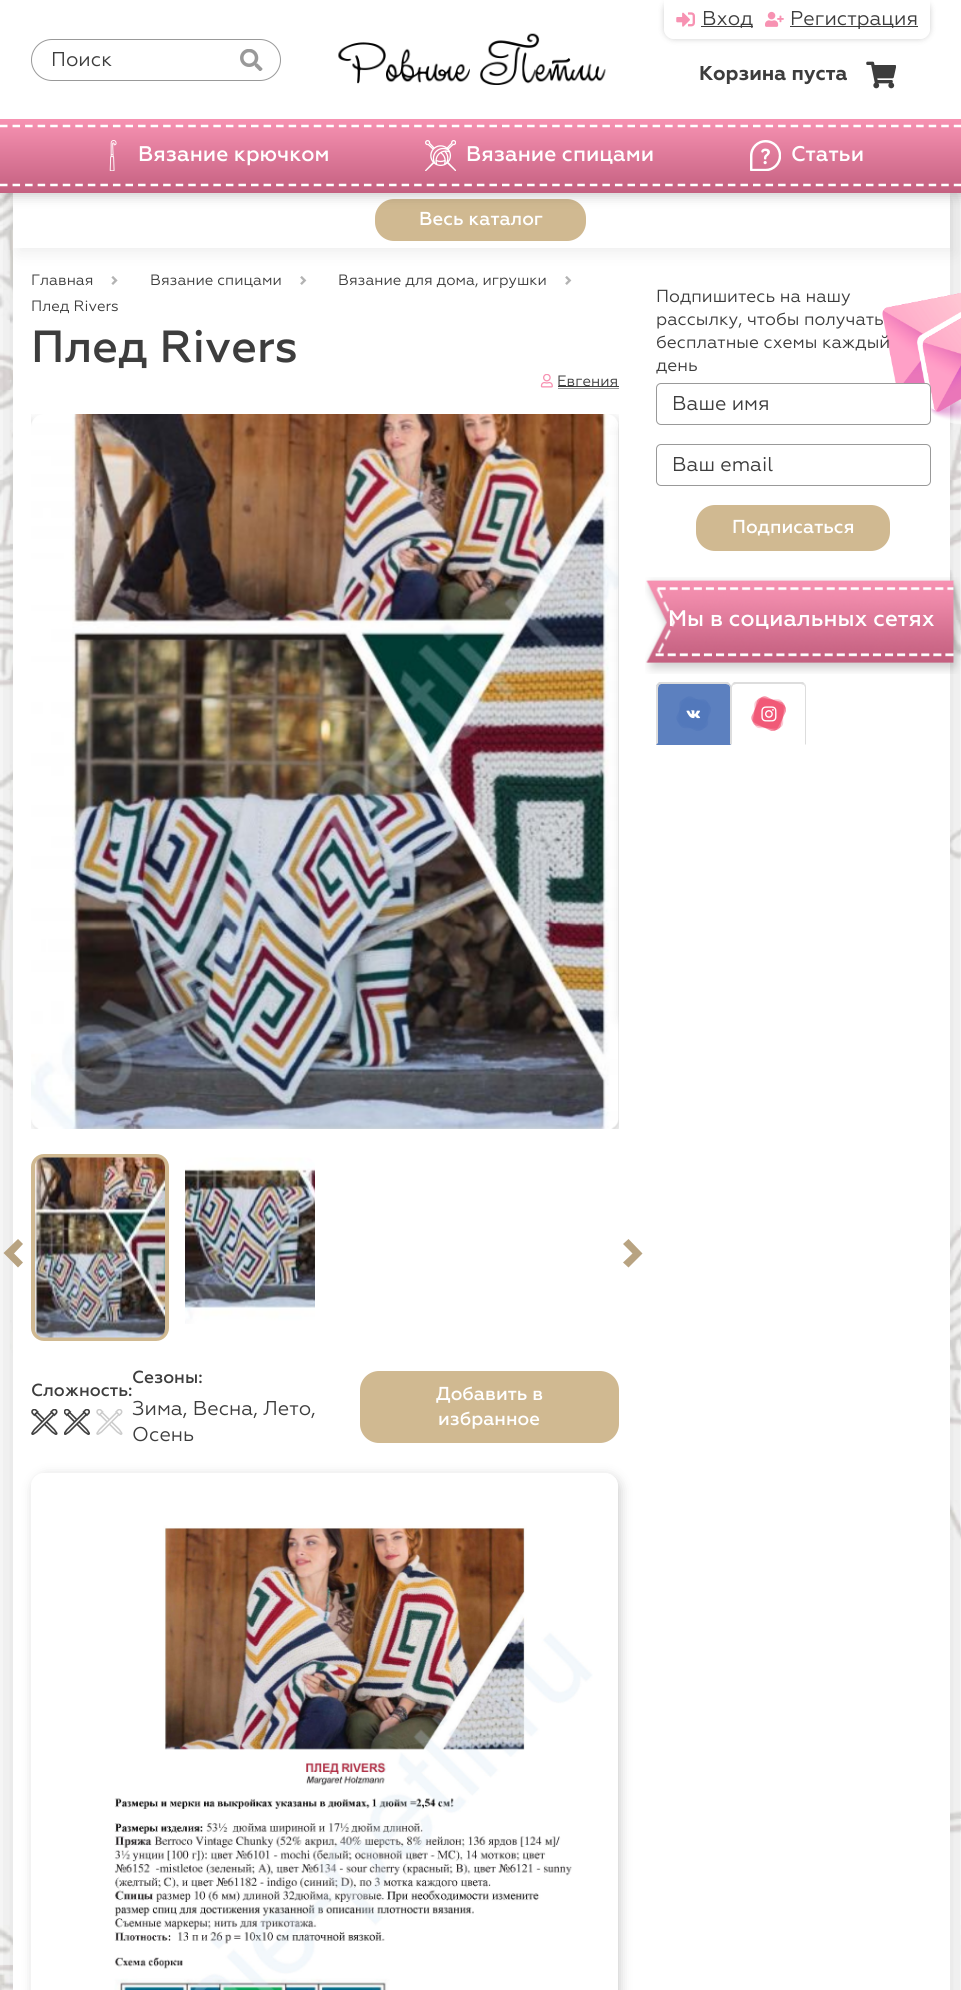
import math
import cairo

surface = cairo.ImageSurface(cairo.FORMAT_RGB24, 961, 1990)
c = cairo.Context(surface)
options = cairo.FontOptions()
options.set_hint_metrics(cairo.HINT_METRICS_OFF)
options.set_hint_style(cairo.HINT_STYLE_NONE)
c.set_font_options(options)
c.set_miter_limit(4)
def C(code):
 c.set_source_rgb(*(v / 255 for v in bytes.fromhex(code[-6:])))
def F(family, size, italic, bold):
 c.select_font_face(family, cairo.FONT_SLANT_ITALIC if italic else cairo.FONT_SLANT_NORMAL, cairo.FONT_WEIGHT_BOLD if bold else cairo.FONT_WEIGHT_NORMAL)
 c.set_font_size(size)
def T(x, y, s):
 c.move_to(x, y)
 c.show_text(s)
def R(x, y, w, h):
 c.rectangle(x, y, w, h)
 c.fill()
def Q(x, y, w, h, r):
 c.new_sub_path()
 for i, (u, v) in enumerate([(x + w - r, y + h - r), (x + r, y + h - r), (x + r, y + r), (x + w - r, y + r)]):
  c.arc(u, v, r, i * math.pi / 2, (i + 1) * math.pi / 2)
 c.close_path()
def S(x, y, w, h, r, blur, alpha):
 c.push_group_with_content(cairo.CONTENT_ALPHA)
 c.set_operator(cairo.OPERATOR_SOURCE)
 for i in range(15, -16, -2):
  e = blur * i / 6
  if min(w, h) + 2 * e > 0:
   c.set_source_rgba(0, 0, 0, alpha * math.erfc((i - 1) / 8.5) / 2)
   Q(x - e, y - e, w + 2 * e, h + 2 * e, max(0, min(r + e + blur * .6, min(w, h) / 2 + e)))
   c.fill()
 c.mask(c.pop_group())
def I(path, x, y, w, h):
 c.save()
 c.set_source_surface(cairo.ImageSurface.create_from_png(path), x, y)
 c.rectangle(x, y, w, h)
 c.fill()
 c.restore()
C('ffffff')
c.paint()
I('1.png',0,193,961,1797)
C('000000')
S(13,193,937,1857,0,20,.16)
C('ffffff')
R(13,248,937,1742)
C('000000')
S(18,198,937,55,0,8.5,.07)
C('ffffff')
R(13,193,937,55)
C('d0b991')
Q(375,199,211,42,19)
c.fill()
C('000000')
S(3,4,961,192,0,6,.2)
C('ffffff')
R(0,0,961,119)
Q(31.5,39.5,249,41,20.5)
C('999999')
c.set_line_width(1)
c.stroke()
F('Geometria',20,0,0)
C('3d3d3d')
T(51,66,'Поиск')
I('2.png',240,49,23,22)
I('3.png',338,33,268,52)
c.save()
c.set_fill_rule(cairo.FILL_RULE_EVEN_ODD)
c.new_path()
c.move_to(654,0)
c.line_to(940,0)
c.line_to(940,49)
c.line_to(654,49)
c.close_path()
c.move_to(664,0)
c.line_to(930,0)
c.line_to(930,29)
c.curve_to(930,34.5,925.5,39,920,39)
c.line_to(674,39)
c.curve_to(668.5,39,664,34.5,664,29)
c.close_path()
c.clip()
C('000000')
S(664,0,266,39,10,3,.2)
c.restore()
I('4.png',676,12,19,15)
R(701,26,52,1)
T(702,25,'Вход')
I('5.png',765,11,19,16)
R(790,26,128,1)
T(790,25,'Регистрация')
F('Geometria',20,0,1)
T(699,80,'Корзина пуста')
I('6.png',866,61,30,28)
gradient = cairo.LinearGradient(481,193,481,119)
gradient.add_color_stop_rgba(0,0.769,0.376,0.502,1)
gradient.add_color_stop_rgba(1,0.969,0.573,0.698,1)
c.set_source(gradient)
R(0,119,961,74)
c.new_path()
c.move_to(0,126)
c.line_to(961,126)
C('ffffff')
c.set_line_width(2.5)
c.set_dash([7.5,5.05])
c.stroke()
c.new_path()
c.move_to(0,185)
c.line_to(961,185)
c.stroke()
I('7.png',109,140,8,31)
F('Geometria Medium',21.25,0,0)
T(138,161,'Вязание крючком')
I('8.png',425,140,31,31)
T(466,161,'Вязание спицами')
I('9.png',750,140,31,31)
T(791,161,'Статьи')
F('Geometria Medium',18.75,0,0)
T(419,225,'Весь каталог')
F('Geometria',15,0,0)
C('3d3d3d')
T(31,285,'Главная')
I('10.png',111,276,7,9)
T(150,285,'Вязание спицами')
I('11.png',300,276,7,9)
T(338,285,'Вязание для дома, игрушки')
I('11.png',565,276,7,9)
T(31,311,'Плед Rivers')
F('Geometria Medium',45,0,0)
T(31,362,'Плед Rivers')
I('12.png',540,374,13,14)
C('999999')
R(558,388,61,1)
C('3d3d3d')
R(558,386,61,1)
F('Geometria',15,0,0)
T(557,386,'Евгения')
c.save()
c.rectangle(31,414,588,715)
c.clip()
C('000000')
S(-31,418,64,610,13,6,.2)
S(34,418,587,716,13,6,.2)
c.restore()
I('13.png',31,414,588,715)
c.save()
c.rectangle(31,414,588,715)
c.clip()
C('000000')
S(623,418,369,610,13,6,.2)
c.restore()
Q(33,1156,134,183,11)
C('d0b991')
c.set_line_width(4)
c.set_dash([])
c.stroke()
I('14.png',35,1157,130,181)
I('15.png',185,1157,130,167)
C('b8a381')
c.new_path()
c.move_to(23,1244)
c.line_to(14,1253.5)
c.line_to(23,1262.5)
c.line_to(18,1267.5)
c.line_to(3.5,1253)
c.line_to(18,1239)
c.close_path()
c.fill()
c.new_path()
c.move_to(642.5,1253.5)
c.line_to(628.5,1267.5)
c.line_to(623,1262.5)
c.line_to(632.5,1253.5)
c.line_to(623,1244)
c.line_to(628.5,1239)
c.close_path()
c.fill()
F('Geometria Medium',17.5,0,0)
C('3d3d3d')
T(31,1396,'Сложность:')
I('16.png',31,1409,27,26)
I('17.png',64,1409,26,26)
I('18.png',96,1409,27,26)
T(132,1383,'Сезоны:')
F('Geometria',20,0,0)
T(132,1415,'Зима, Весна, Лето,')
T(132,1441,'Осень')
C('d0b991')
Q(360,1371,259,72,19)
c.fill()
F('Geometria Medium',18.75,0,0)
C('ffffff')
T(436,1400,'Добавить в')
T(438,1425,'избранное')
c.save()
c.set_fill_rule(cairo.FILL_RULE_EVEN_ODD)
c.new_path()
c.move_to(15,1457)
c.line_to(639,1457)
c.line_to(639,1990)
c.line_to(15,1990)
c.close_path()
c.move_to(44,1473)
c.line_to(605,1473)
c.curve_to(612,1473,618,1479,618,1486)
c.line_to(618,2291)
c.curve_to(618,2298,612,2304,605,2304)
c.line_to(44,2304)
c.curve_to(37,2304,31,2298,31,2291)
c.line_to(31,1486)
c.curve_to(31,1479,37,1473,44,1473)
c.close_path()
c.clip()
C('000000')
S(34,1476,586,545,13,6,.2)
c.restore()
I('19.png',114,1478,504,512)
F('Geometria',17.5,0,0)
C('3d3d3d')
T(656,302,'Подпишитесь на нашу')
I('20.png',882,292,79,132)
T(656,325,'рассылку, чтобы получать')
T(656,348,'бесплатные схемы каждый')
T(656,371,'день')
C('ffffff')
Q(656.5,383.5,274,41,4.5)
c.fill_preserve()
C('999999')
c.set_line_width(1)
c.stroke()
F('Geometria',20,0,0)
C('3d3d3d')
T(672,410,'Ваше имя')
Q(656.5,444.5,274,41,4.5)
C('999999')
c.stroke()
C('3d3d3d')
T(672,471,'Ваш email')
C('d0b991')
Q(696,505,194,46,19)
c.fill()
F('Geometria Medium',18.75,0,0)
C('ffffff')
T(732,533,'Подписаться')
I('21.png',645,577,316,97)
F('Geometria Medium',22.5,0,0)
T(668,626,'Мы в социальных сетях')
C('5c80bf')
c.new_path()
c.move_to(661,683)
c.line_to(726,683)
c.curve_to(729,683,731,685,731,688)
c.line_to(731,745)
c.line_to(656,745)
c.line_to(656,688)
c.curve_to(656,685,658,683,661,683)
c.close_path()
c.fill()
C('dddddd')
c.new_path()
c.move_to(661,684)
c.line_to(659,685)
c.line_to(657,684)
c.line_to(659,682)
c.line_to(728,682)
c.line_to(730,684)
c.line_to(729,685)
c.line_to(726,684)
c.close_path()
c.fill()
c.new_path()
c.move_to(730,684)
c.curve_to(731,685,731,687,731,688)
c.line_to(731,745)
c.line_to(730,744)
c.line_to(730,687)
c.line_to(729,685)
c.close_path()
c.fill()
c.new_path()
c.move_to(656,745)
c.line_to(656,686)
c.line_to(657,684)
c.line_to(659,685)
c.line_to(658,688)
c.line_to(658,743)
c.close_path()
c.fill()
I('22.png',676,696,35,35)
c.new_path()
c.move_to(736,684)
c.line_to(733,685)
c.line_to(732,684)
c.line_to(734,682)
c.line_to(803,682)
c.line_to(805,684)
c.line_to(804,685)
c.line_to(801,684)
c.close_path()
c.fill()
c.new_path()
c.move_to(805,684)
c.curve_to(806,685,806,687,806,688)
c.line_to(806,745)
c.line_to(805,744)
c.line_to(805,687)
c.line_to(804,685)
c.close_path()
c.fill()
c.new_path()
c.move_to(731,745)
c.line_to(731,686)
c.line_to(732,684)
c.line_to(733,685)
c.line_to(732,687)
c.line_to(732,744)
c.close_path()
c.fill()
I('23.png',751,696,35,35)
surface.write_to_png('o.png')
